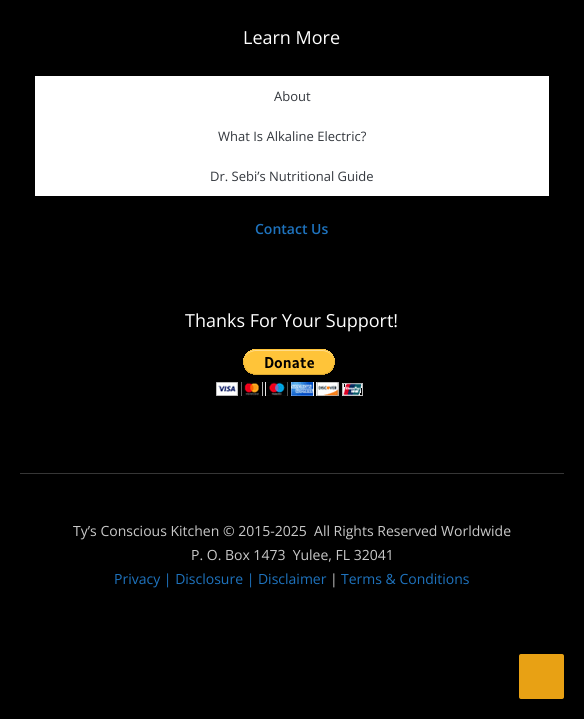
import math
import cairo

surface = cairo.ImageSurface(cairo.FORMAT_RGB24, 584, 719)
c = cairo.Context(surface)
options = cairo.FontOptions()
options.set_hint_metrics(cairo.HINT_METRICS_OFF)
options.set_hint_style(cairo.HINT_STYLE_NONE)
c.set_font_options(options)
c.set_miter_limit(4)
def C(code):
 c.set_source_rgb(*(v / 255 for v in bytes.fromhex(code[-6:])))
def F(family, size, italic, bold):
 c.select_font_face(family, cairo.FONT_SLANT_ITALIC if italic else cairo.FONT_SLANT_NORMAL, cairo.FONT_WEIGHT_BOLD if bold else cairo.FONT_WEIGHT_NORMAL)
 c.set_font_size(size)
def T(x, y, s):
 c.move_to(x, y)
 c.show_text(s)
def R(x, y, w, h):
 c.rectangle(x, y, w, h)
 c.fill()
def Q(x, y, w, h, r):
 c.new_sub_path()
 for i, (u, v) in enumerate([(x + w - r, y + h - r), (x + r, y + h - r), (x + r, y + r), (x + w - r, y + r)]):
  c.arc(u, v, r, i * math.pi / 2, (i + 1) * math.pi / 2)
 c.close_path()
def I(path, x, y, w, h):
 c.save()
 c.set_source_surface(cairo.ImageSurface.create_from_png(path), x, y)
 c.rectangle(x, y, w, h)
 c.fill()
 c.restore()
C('000000')
c.paint()
F('Open Sans',18,0,0)
C('ffffff')
T(243,44,'Learn More')
R(35,76,514,120)
F('Open Sans',13,0,0)
C('33373d')
T(274,101,'About')
T(218,141,'What Is Alkaline Electric?')
T(210,181,'Dr. Sebi’s Nutritional Guide')
F('Open Sans SemiBold',14,0,0)
C('1e73be')
T(255,234,'Contact Us')
F('Open Sans',18,0,0)
C('ffffff')
T(185,327,'Thanks For Your Support!')
I('1.png',216,349,147,47)
C('363636')
R(20,473,544,1)
F('Open Sans',14,0,0)
C('c9c9c9')
T(73,536,'Ty’s Conscious Kitchen © 2015-2025  All Rights Reserved Worldwide')
T(191,560,'P. O. Box 1473  Yulee, FL 32041')
C('1e73be')
T(114,584,'Privacy | Disclosure | Disclaimer')
C('c9c9c9')
T(330,584,'|')
C('1e73be')
T(341,584,'Terms & Conditions')
C('e8a114')
Q(519,654,45,45,2)
c.fill()
surface.write_to_png('o.png')
